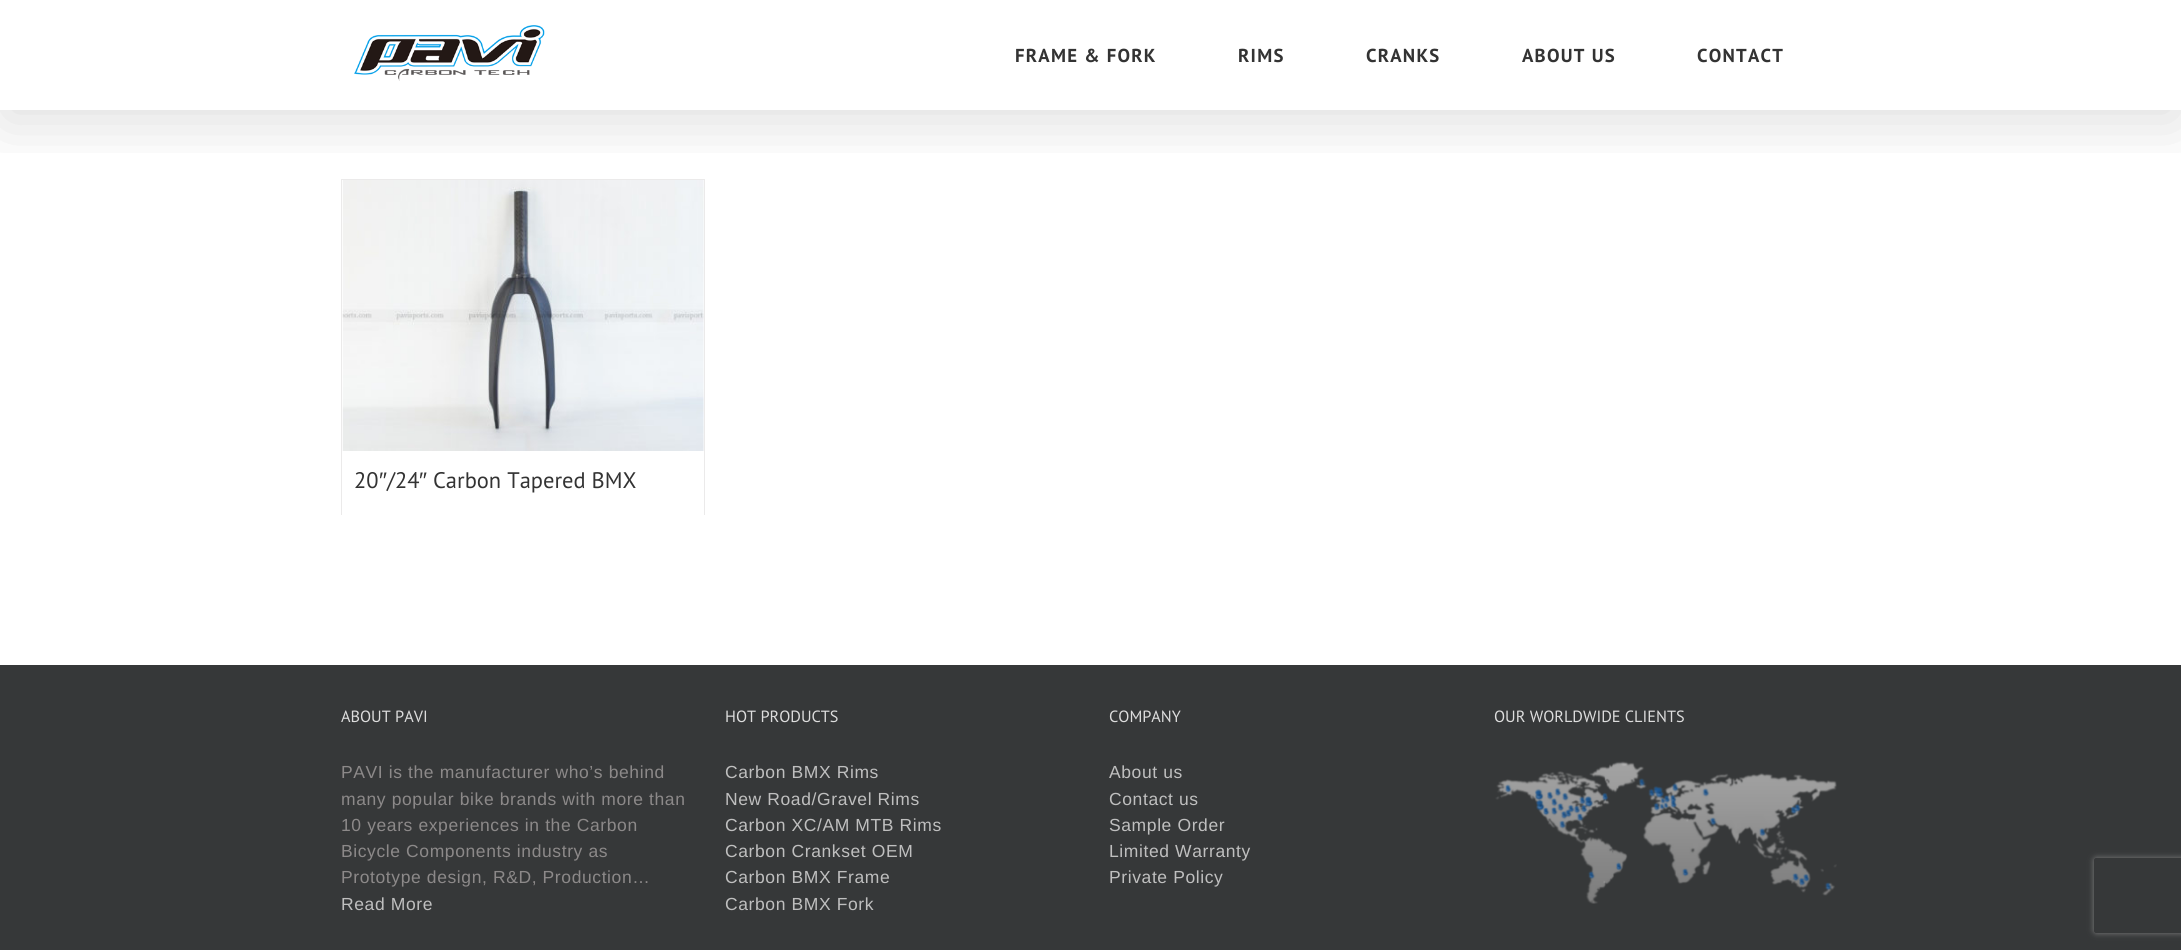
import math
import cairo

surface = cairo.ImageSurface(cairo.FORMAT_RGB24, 2181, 950)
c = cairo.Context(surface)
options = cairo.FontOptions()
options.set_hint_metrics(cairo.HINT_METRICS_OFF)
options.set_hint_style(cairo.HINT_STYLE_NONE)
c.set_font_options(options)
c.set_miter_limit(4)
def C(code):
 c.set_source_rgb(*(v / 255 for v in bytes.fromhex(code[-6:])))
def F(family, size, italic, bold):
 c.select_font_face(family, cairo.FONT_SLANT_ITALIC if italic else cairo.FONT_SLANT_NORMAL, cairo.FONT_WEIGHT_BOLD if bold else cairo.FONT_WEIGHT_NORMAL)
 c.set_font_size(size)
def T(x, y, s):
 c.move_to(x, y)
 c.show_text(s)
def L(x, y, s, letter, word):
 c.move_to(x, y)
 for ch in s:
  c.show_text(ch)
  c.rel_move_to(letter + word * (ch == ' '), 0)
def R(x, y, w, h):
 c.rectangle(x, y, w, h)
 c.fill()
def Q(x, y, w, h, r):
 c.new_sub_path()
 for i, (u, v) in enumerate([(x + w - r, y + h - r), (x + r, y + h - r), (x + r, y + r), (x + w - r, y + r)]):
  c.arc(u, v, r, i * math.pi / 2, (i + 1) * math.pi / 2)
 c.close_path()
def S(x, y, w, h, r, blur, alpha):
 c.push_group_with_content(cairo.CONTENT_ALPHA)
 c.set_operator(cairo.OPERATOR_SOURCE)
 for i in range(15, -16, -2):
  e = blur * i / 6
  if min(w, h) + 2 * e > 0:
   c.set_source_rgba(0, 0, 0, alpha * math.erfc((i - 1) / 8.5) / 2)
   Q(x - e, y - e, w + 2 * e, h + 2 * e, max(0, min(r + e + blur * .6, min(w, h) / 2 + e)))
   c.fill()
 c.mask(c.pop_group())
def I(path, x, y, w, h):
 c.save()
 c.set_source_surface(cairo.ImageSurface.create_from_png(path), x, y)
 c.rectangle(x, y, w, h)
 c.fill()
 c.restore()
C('ffffff')
c.paint()
C('ebeaea')
R(341,179,364,1)
R(704,179,1,336)
R(341,179,1,336)
I('2.png',342,180,362,271)
c.save()
c.rectangle(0,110,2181,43)
c.clip()
C('000000')
S(3,15,2176,105,0,31,.14)
c.restore()
I('1.png',354,25,191,56)
F('PT Sans',18.75,0,1)
C('333333')
L(1015,62,'FRAME & FORK',1.25,0)
L(1238,62,'RIMS',1.25,0)
L(1366,62,'CRANKS',1.25,0)
L(1522,62,'ABOUT US',1.25,0)
L(1697,62,'CONTACT',1.25,0)
F('PT Sans',22.5,0,0)
T(354,488,'20')
F('Liberation Sans',22.5,0,0)
T(379,488,'″')
F('PT Sans',22.5,0,0)
T(387,488,'/24')
F('Liberation Sans',22.5,0,0)
T(419,488,'″')
F('PT Sans',22.5,0,0)
T(433,488,'Carbon Tapered BMX')
C('363839')
R(0,665,2181,285)
F('PT Sans',16.25,0,0)
C('dddddd')
T(341,722,'ABOUT PAVI')
F('Liberation Sans',17.5,0,0)
C('8c8989')
L(341,778,'PAVI is the manufacturer who’s behind',.6,0)
L(341,805,'many popular bike brands with more than',.6,0)
L(341,831,'10 years experiences in the Carbon',.6,0)
L(341,857,'Bicycle Components industry as',.6,0)
L(341,883,'Prototype design, R&D, Production…',.6,0)
C('bfbfbf')
L(341,910,'Read More',.6,0)
F('PT Sans',16.25,0,0)
C('dddddd')
T(725,722,'HOT PRODUCTS')
F('Liberation Sans',17.5,0,0)
C('bfbfbf')
L(725,778,'Carbon BMX Rims',.6,0)
L(725,805,'New Road/Gravel Rims',.6,0)
L(725,831,'Carbon XC/AM MTB Rims',.6,0)
L(725,857,'Carbon Crankset OEM',.6,0)
L(725,883,'Carbon BMX Frame',.6,0)
L(725,910,'Carbon BMX Fork',.6,0)
F('PT Sans',16.25,0,0)
C('dddddd')
T(1109,722,'COMPANY')
F('Liberation Sans',17.5,0,0)
C('bfbfbf')
L(1109,778,'About us',.6,0)
L(1109,805,'Contact us',.6,0)
L(1109,831,'Sample Order',.6,0)
L(1109,857,'Limited Warranty',.6,0)
L(1109,883,'Private Policy',.6,0)
F('PT Sans',16.25,0,0)
C('dddddd')
T(1494,722,'OUR WORLDWIDE CLIENTS')
I('3.png',1495,761,342,143)
c.save()
c.set_fill_rule(cairo.FILL_RULE_EVEN_ODD)
c.new_path()
c.move_to(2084,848)
c.line_to(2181,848)
c.line_to(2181,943)
c.line_to(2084,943)
c.close_path()
c.move_to(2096.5,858)
c.line_to(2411.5,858)
c.curve_to(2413,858,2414,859,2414,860.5)
c.line_to(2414,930.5)
c.curve_to(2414,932,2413,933,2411.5,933)
c.line_to(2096.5,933)
c.curve_to(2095,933,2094,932,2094,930.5)
c.line_to(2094,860.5)
c.curve_to(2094,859,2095,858,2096.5,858)
c.close_path()
c.clip()
C('808080')
S(2094,858,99,75,2.5,3,1)
c.restore()
surface.write_to_png('o.png')
